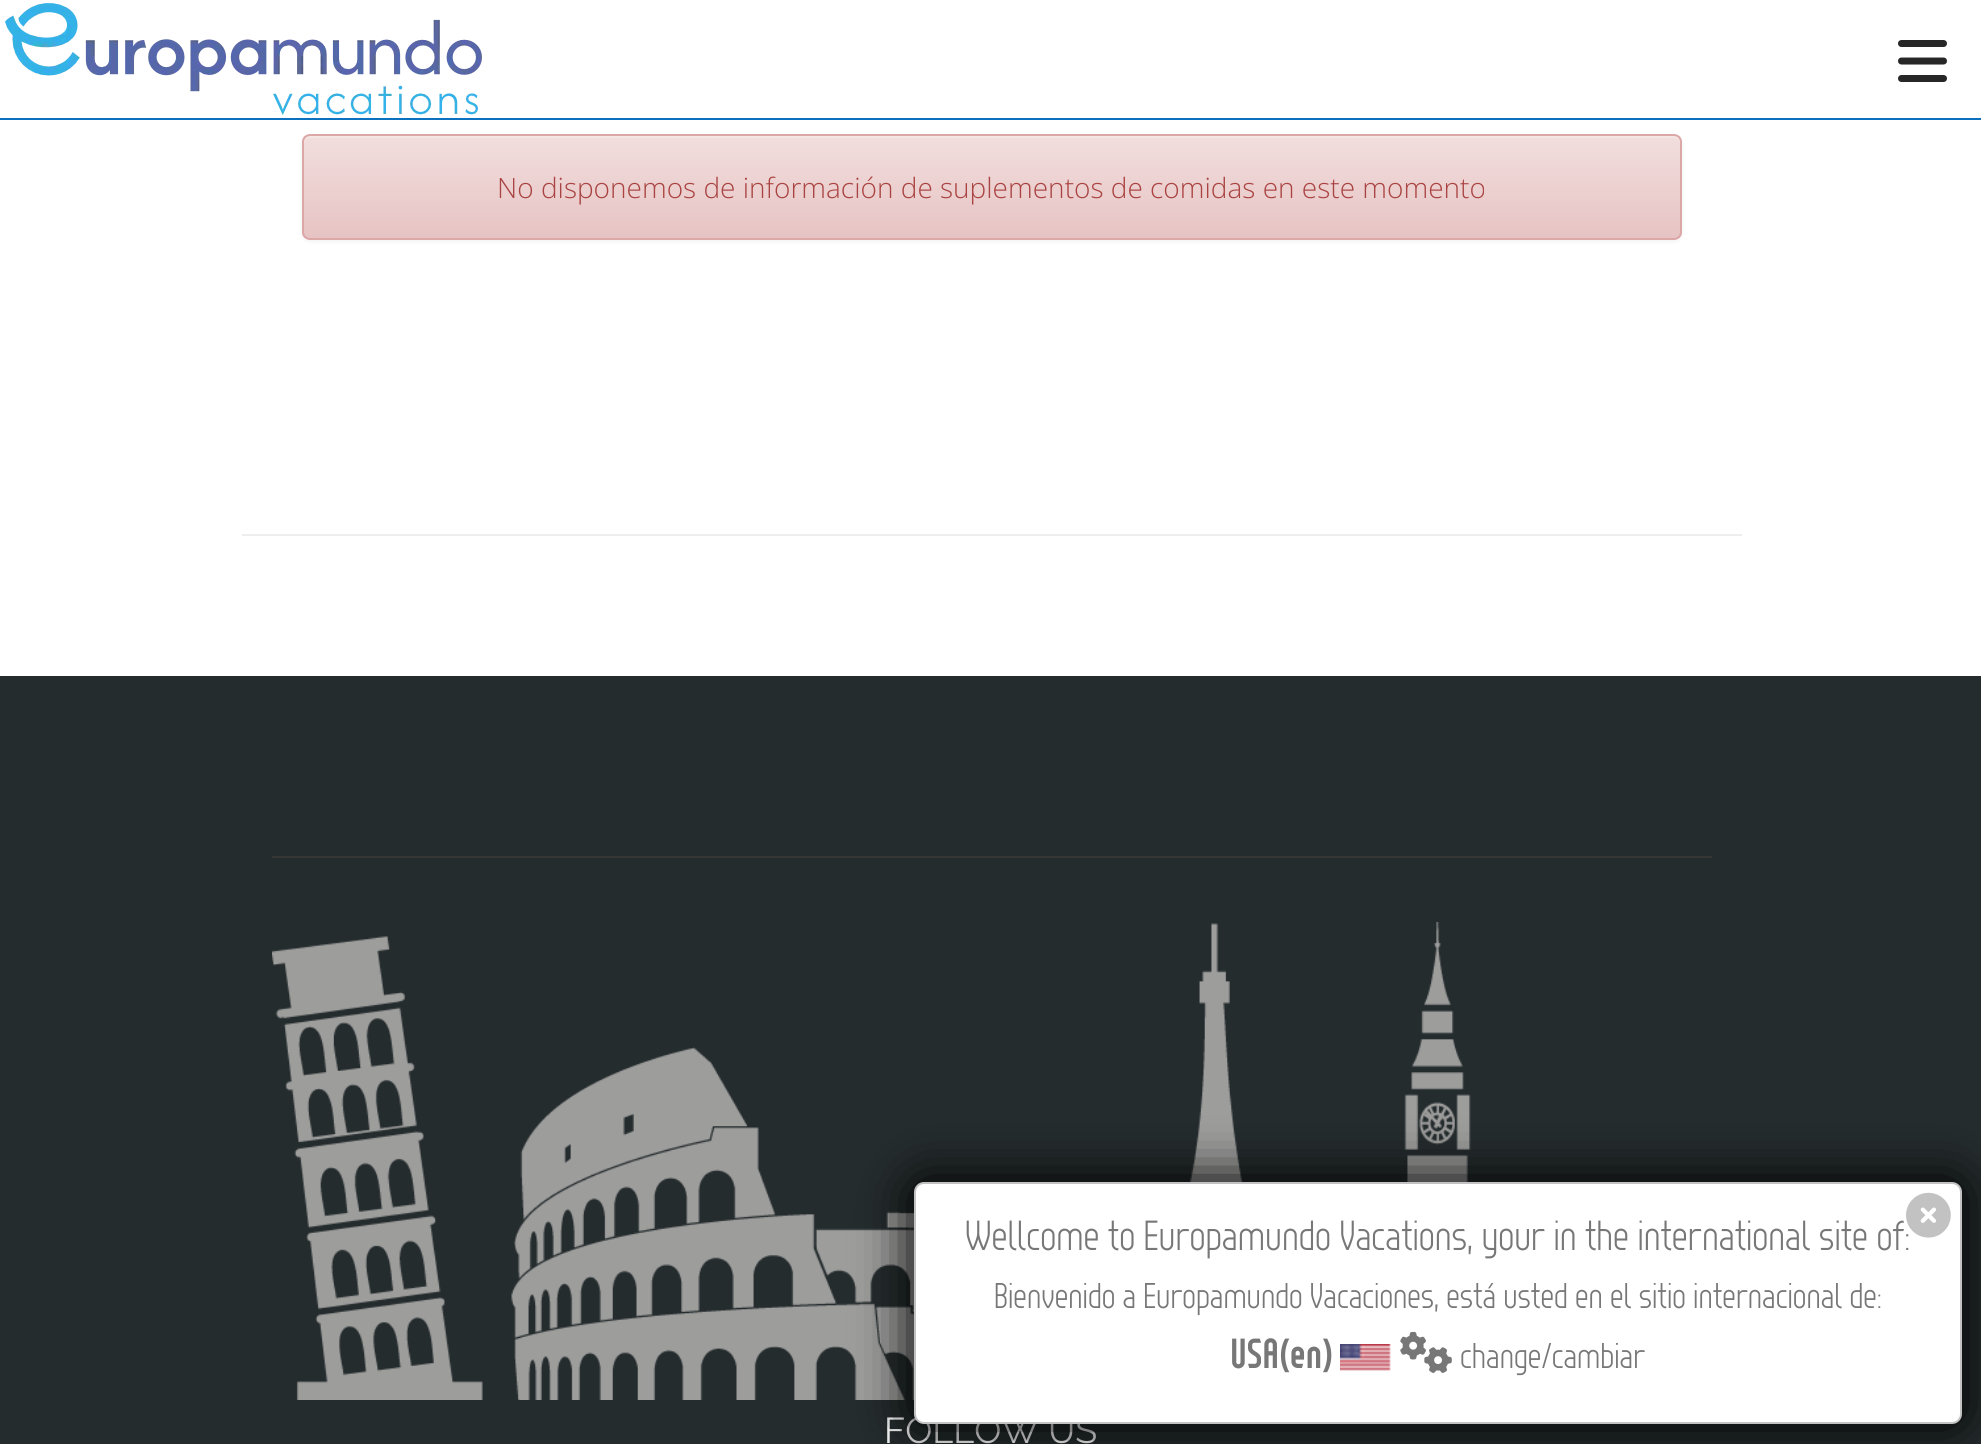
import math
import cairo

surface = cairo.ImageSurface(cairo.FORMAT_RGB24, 1981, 1444)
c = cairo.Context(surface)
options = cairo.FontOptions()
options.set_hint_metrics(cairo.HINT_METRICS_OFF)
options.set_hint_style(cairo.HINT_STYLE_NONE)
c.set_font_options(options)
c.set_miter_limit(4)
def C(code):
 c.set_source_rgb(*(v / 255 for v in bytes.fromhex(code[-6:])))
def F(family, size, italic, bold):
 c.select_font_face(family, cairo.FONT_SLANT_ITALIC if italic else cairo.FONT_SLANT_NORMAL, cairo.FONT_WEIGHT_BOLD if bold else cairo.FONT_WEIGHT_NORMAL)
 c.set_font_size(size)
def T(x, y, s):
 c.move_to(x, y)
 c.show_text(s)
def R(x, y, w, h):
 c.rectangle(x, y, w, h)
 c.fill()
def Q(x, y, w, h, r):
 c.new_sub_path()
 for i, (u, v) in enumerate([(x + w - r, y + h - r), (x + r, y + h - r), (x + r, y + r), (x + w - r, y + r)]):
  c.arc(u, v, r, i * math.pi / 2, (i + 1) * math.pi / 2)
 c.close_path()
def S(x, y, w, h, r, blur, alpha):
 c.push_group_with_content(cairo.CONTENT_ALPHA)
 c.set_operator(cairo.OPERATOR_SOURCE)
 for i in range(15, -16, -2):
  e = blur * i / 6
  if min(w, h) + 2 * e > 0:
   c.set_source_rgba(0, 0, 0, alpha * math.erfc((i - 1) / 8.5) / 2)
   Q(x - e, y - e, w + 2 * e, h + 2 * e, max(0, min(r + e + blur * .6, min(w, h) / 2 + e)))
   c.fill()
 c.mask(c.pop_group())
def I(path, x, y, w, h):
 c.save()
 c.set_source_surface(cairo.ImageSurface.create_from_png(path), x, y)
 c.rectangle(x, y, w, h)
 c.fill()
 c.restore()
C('252c2e')
c.paint()
C('ffffff')
R(0,0,1981,118)
C('0b70bd')
R(0,118,1981,2)
I('1.png',5,3,477,112)
I('2.png',1898,40,49,42)
C('ffffff')
R(0,120,1981,556)
C('000000')
S(302,136,1380,106,8,2,.05)
c.save()
Q(302,134,1380,106,8)
c.clip()
gradient = cairo.LinearGradient(992,136,992,238)
gradient.add_color_stop_rgba(0,0.949,0.871,0.871,1)
gradient.add_color_stop_rgba(1,0.906,0.765,0.765,1)
c.set_source(gradient)
R(302,136,1380,102)
c.restore()
C('f5e6e6')
c.new_path()
c.move_to(310,138)
c.line_to(1674,138)
c.curve_to(1677,138,1680,141,1680,144)
c.line_to(1680,142)
c.curve_to(1680,139,1677,136,1674,136)
c.line_to(310,136)
c.curve_to(307,136,304,139,304,142)
c.line_to(304,144)
c.curve_to(304,141,307,138,310,138)
c.close_path()
c.fill()
Q(303,135,1378,104,7)
C('dca7a7')
c.stroke()
F('Open Sans Light',28,0,0)
C('a94442')
T(497,198,'No disponemos de información de suplementos de comidas en este momento')
C('eeeeee')
R(242,534,1500,2)
C('363636')
R(272,856,1440,2)
I('3.png',272,922,1199,478)
F('Raleway Thin',36,0,0)
C('ffffff')
T(884,1443,'FOLLOW US')
C('000000')
S(910,1178,1056,250,14,25,1)
C('ffffff')
Q(915,1183,1046,240,9)
c.fill_preserve()
C('c2c2c2')
c.stroke()
F('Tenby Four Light',42,0,0)
C('777777')
T(965,1250,'Wellcome to Europamundo Vacations, your in the international site of:')
I('4.png',1906,1192,45,46)
F('Tenby Four Light',35.7,0,0)
T(994,1308,'Bienvenido a Europamundo Vacaciones, está usted en el sitio internacional de:')
F('Tenby Four',42,0,1)
T(1230,1368,'USA(en)')
I('5.png',1340,1344,51,27)
I('6.png',1400,1331,52,42)
F('Tenby Four Light',35.7,0,0)
T(1460,1368,'change/cambiar')
surface.write_to_png('o.png')
